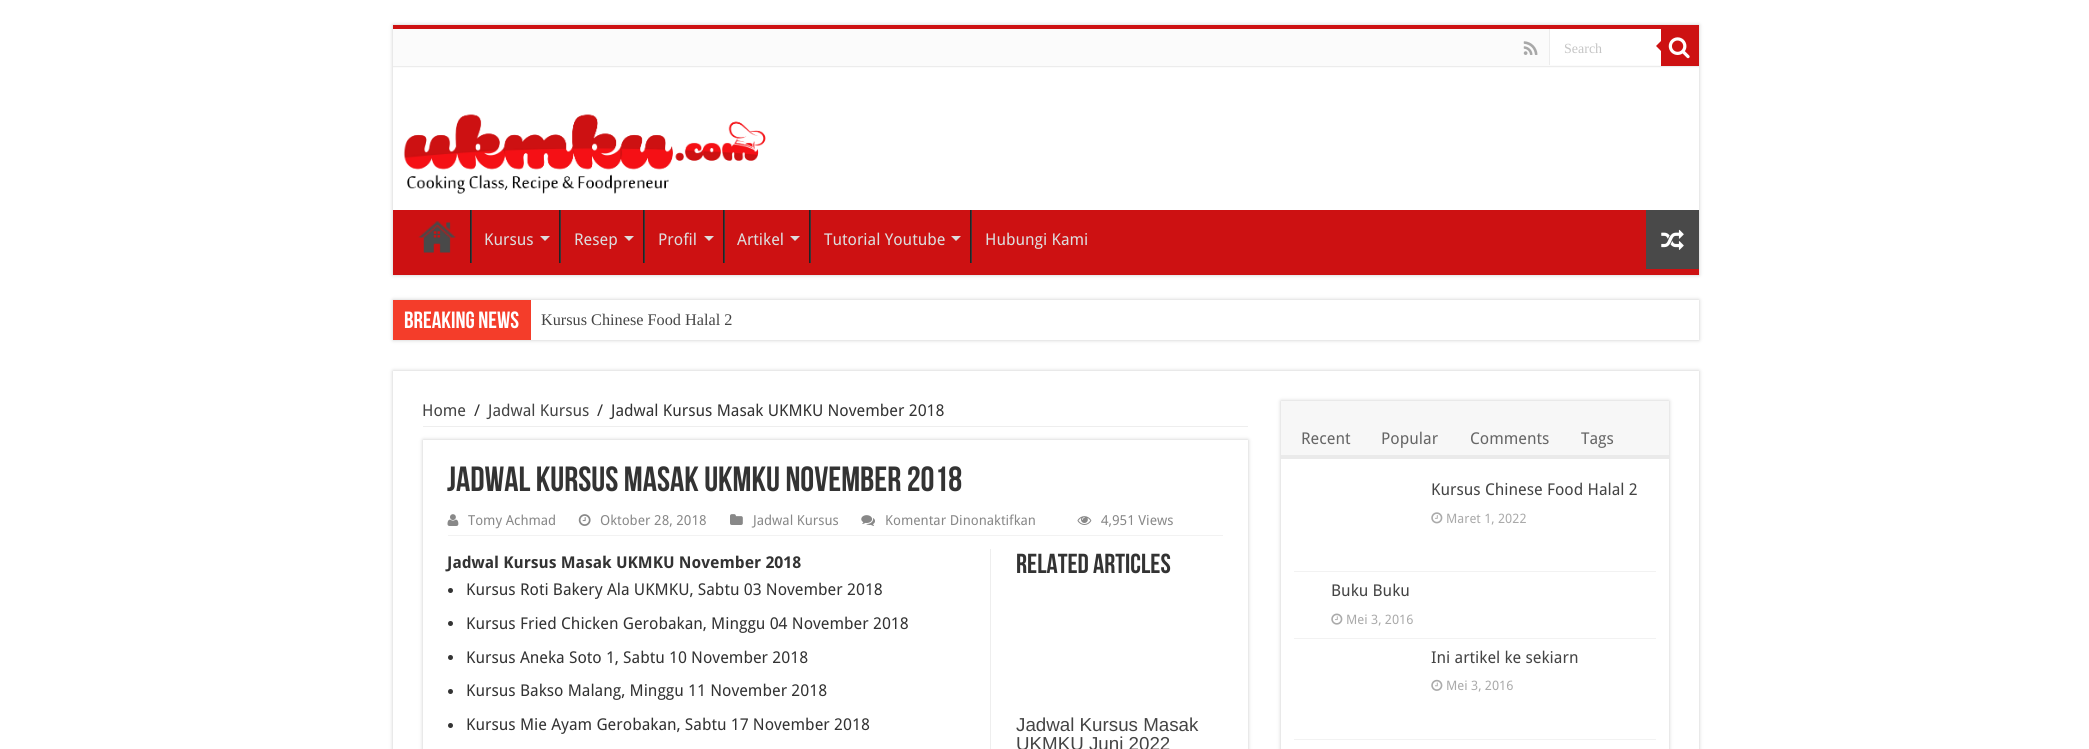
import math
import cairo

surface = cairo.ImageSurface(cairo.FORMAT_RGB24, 2089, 749)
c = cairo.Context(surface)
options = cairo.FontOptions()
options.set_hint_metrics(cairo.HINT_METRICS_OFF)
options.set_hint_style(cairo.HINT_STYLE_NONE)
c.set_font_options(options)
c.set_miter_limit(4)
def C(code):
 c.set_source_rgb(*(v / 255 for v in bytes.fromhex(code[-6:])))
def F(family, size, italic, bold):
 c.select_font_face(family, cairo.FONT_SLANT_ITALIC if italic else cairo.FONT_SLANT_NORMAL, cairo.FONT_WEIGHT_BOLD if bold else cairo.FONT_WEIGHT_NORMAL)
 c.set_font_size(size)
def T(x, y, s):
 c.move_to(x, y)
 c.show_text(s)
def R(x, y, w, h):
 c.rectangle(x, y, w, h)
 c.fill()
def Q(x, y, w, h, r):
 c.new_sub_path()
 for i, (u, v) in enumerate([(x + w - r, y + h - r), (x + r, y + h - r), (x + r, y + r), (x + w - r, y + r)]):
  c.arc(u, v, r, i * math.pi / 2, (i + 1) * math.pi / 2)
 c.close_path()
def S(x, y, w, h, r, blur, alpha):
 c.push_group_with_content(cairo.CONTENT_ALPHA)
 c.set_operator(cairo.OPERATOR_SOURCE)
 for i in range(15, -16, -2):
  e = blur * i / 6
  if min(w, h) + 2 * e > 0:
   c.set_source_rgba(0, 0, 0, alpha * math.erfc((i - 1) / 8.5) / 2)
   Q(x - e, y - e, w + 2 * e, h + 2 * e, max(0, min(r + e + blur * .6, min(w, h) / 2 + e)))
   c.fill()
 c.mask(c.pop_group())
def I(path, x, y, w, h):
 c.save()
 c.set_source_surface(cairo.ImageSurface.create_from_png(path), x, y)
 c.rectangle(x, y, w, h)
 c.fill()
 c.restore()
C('ffffff')
c.paint()
C('cacaca')
S(393,25,1306,250,0,2,1)
C('ffffff')
R(393,68,1306,142)
C('cd1112')
R(393,25,1306,4)
C('fbfbfb')
R(393,29,1306,39)
C('ececec')
R(393,66,1306,1)
I('1.png',1523,41,15,14)
C('ffffff')
R(1550,29,111,36)
C('ececec')
R(1549,29,1,36)
F('Liberation Serif',14,0,0)
C('c5c5c5')
T(1564,53,'Search')
C('cd1112')
R(1661,29,38,37)
I('2.png',1668,37,22,22)
c.new_path()
c.move_to(1661,41)
c.line_to(1661,51)
c.line_to(1656,46)
c.close_path()
c.fill()
I('3.png',403,114,363,80)
R(393,210,1306,65)
I('4.png',418,221,38,32)
C('222222')
R(470,210,1,53)
C('383838')
R(471,210,1,53)
F('Droid Sans',16.25,0,0)
C('dddddd')
T(484,245,'Kursus')
c.new_path()
c.move_to(540,236)
c.line_to(550,236)
c.line_to(545,241)
c.close_path()
c.fill()
C('222222')
R(559,210,1,53)
C('383838')
R(560,210,1,53)
C('dddddd')
T(574,245,'Resep')
c.new_path()
c.move_to(624,236)
c.line_to(634,236)
c.line_to(629,241)
c.close_path()
c.fill()
C('222222')
R(643,210,1,53)
C('383838')
R(644,210,1,53)
C('dddddd')
T(658,245,'Profil')
c.new_path()
c.move_to(704,236)
c.line_to(714,236)
c.line_to(709,241)
c.close_path()
c.fill()
C('222222')
R(723,210,1,53)
C('383838')
R(724,210,1,53)
C('dddddd')
T(737,245,'Artikel')
c.new_path()
c.move_to(790,236)
c.line_to(800,236)
c.line_to(795,241)
c.close_path()
c.fill()
C('222222')
R(809,210,1,53)
C('383838')
R(810,210,1,53)
C('dddddd')
T(824,245,'Tutorial Youtube')
c.new_path()
c.move_to(951,236)
c.line_to(961,236)
c.line_to(956,241)
c.close_path()
c.fill()
C('222222')
R(970,210,1,53)
C('383838')
R(971,210,1,53)
C('dddddd')
T(985,245,'Hubungi Kami')
C('494949')
R(1646,210,53,59)
I('5.png',1661,229,23,21)
C('cacaca')
S(393,300,1306,40,0,2,1)
C('ffffff')
R(531,300,1168,40)
C('f43d2a')
R(393,300,138,40)
F('Bebas Neue',23.5,0,1)
C('ffffff')
T(404,328,'Breaking News')
F('Liberation Serif',16.25,0,0)
C('444444')
T(541,325,'Kursus Chinese Food Halal 2')
C('cacaca')
S(393,371,1306,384,0,2,1)
C('ffffff')
R(393,371,1306,378)
C('eeeeee')
R(423,426,825,1)
F('Droid Sans',16.25,0,0)
C('444444')
T(422,416,'Home')
C('333333')
T(474,416,'/')
C('444444')
T(488,416,'Jadwal Kursus')
C('333333')
T(597,416,'/')
T(611,416,'Jadwal Kursus Masak UKMKU November 2018')
C('cacaca')
S(423,440,825,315,0,2,1)
C('ffffff')
R(423,440,825,309)
F('Bebas Neue',35,0,1)
C('333333')
T(447,491,'Jadwal Kursus Masak UKMKU November 2018')
C('f2f2f2')
R(448,535,775,1)
I('6.png',447,514,12,12)
F('Droid Sans',13.75,0,0)
C('888888')
T(468,525,'Tomy Achmad')
I('7.png',578,514,13,12)
T(600,525,'Oktober 28, 2018')
I('8.png',730,514,13,11)
T(753,525,'Jadwal Kursus')
I('9.png',861,515,14,11)
T(885,525,'Komentar Dinonaktifkan')
I('10.png',1077,516,15,9)
T(1101,525,'4,951 Views')
F('Droid Sans',16.25,0,1)
C('333333')
T(447,568,'Jadwal Kursus Masak UKMKU November 2018')
C('eeeeee')
R(990,549,1,200)
F('Bebas Neue',27.5,0,1)
C('333333')
T(1016,573,'Related Articles')
F('Liberation Sans',18.75,0,0)
C('444444')
T(1016,731,'Jadwal Kursus Masak')
T(1016,750,'UKMKU Juni 2022')
C('333333')
c.new_path()
c.arc(450.5,590.5,2.5,0,2 * math.pi)
c.fill()
F('Droid Sans',16.25,0,0)
T(466,595,'Kursus Roti Bakery Ala UKMKU, Sabtu 03 November 2018')
c.new_path()
c.arc(450.5,623.5,2.5,0,2 * math.pi)
c.fill()
T(466,629,'Kursus Fried Chicken Gerobakan, Minggu 04 November 2018')
c.new_path()
c.arc(450.5,657.5,2.5,0,2 * math.pi)
c.fill()
T(466,663,'Kursus Aneka Soto 1, Sabtu 10 November 2018')
c.new_path()
c.arc(450.5,691.5,2.5,0,2 * math.pi)
c.fill()
T(466,696,'Kursus Bakso Malang, Minggu 11 November 2018')
c.new_path()
c.arc(450.5,725.5,2.5,0,2 * math.pi)
c.fill()
T(466,730,'Kursus Mie Ayam Gerobakan, Sabtu 17 November 2018')
C('cacaca')
S(1281,401,388,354,0,2,1)
C('ffffff')
R(1281,459,388,290)
C('f7f7f7')
R(1281,401,388,54)
C('eaeaea')
R(1281,455,388,4)
C('666666')
T(1301,444,'Recent')
T(1381,444,'Popular')
T(1470,444,'Comments')
T(1581,444,'Tags')
C('f2f2f2')
R(1294,571,362,1)
C('444444')
T(1431,495,'Kursus Chinese Food Halal 2')
I('11.png',1431,512,12,12)
F('Droid Sans',13,0,0)
C('aaaaaa')
T(1446,523,'Maret 1, 2022')
C('f2f2f2')
R(1294,638,362,1)
F('Droid Sans',16.25,0,0)
C('444444')
T(1331,596,'Buku Buku')
I('12.png',1331,613,12,12)
F('Droid Sans',13,0,0)
C('aaaaaa')
T(1346,624,'Mei 3, 2016')
C('f2f2f2')
R(1294,739,362,1)
F('Droid Sans',16.25,0,0)
C('444444')
T(1431,663,'Ini artikel ke sekiarn')
I('13.png',1431,679,12,12)
F('Droid Sans',13,0,0)
C('aaaaaa')
T(1446,690,'Mei 3, 2016')
surface.write_to_png('o.png')
